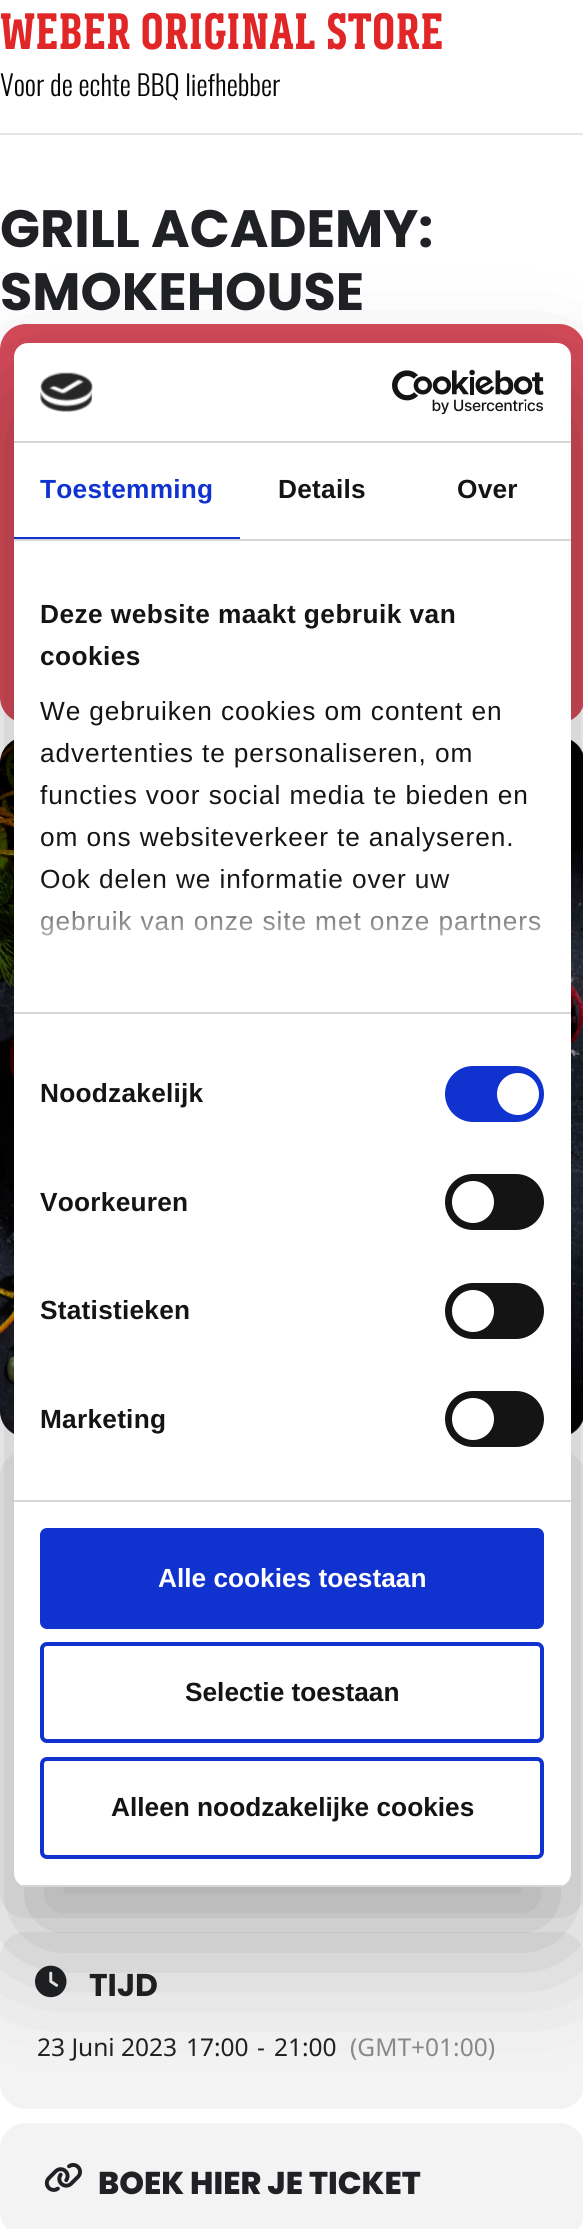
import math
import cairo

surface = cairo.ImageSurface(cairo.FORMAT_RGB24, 583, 2229)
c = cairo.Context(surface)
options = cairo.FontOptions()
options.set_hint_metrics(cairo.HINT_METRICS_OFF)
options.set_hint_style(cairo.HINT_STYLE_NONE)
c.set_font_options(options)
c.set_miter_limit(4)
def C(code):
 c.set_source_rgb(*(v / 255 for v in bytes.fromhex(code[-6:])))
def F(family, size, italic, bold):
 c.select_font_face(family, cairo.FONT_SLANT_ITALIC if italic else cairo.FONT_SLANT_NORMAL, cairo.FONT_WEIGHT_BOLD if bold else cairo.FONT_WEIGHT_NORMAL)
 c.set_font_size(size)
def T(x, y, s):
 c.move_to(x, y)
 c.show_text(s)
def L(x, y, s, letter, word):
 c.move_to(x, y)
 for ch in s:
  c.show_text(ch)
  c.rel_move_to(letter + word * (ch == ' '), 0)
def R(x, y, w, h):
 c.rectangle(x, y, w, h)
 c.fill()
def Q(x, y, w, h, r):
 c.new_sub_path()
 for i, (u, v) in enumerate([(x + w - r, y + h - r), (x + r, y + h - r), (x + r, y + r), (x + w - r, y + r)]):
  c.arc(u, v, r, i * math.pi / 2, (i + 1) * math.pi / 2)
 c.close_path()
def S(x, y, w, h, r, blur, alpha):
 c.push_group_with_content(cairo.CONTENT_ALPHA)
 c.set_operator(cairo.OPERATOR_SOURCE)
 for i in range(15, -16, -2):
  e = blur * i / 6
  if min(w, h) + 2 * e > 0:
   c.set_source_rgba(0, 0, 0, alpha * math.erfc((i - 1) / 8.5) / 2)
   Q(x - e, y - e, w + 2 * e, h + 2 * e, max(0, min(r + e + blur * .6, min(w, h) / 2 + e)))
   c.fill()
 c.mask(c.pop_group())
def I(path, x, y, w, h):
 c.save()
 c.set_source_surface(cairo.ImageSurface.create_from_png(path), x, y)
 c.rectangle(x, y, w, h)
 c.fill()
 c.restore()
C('ffffff')
c.paint()
F('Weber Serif',52.5,0,1)
C('e02627')
T(0,49,'WEBER ORIGINAL STORE')
F('Oswald Light',28,0,0)
C('070707')
T(0,96,'Voor de echte BBQ liefhebber')
C('e6e6e6')
R(0,133,583,2)
F('Poppins',52.5,0,1)
C('202124')
T(0,247,'GRILL ACADEMY:')
T(0,310,'SMOKEHOUSE')
C('d64b59')
Q(0,324,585,399,26)
c.fill()
C('333333')
Q(0,737,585,700,26)
c.fill()
I('1.png',0,740,583,694)
C('f3f3f3')
Q(0,1451,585,467,26)
c.fill()
Q(0,1932,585,177,26)
c.fill()
I('2.png',35,1965,32,33)
F('Poppins',31.5,0,1)
C('202124')
T(89,1996,'TIJD')
F('Noto Sans',24.5,0,0)
T(37,2056,'23 Juni 2023')
T(186,2056,'17:00')
T(257,2056,'-')
T(274,2056,'21:00')
C('8a8a8c')
T(350,2056,'(GMT+01:00)')
C('f3f3f3')
Q(0,2123,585,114,26)
c.fill()
I('3.png',44,2163,38,29)
F('Poppins ExtraBold',31.5,0,0)
C('202124')
T(98,2194,'BOEK HIER JE TICKET')
C('000000')
S(14,399,557,1544,14,59.5,.3)
C('ffffff')
Q(14,343,557,1544,14)
c.fill()
C('d6d6d6')
R(14,441,557,2)
I('4.png',40,372,53,40)
I('5.png',392,369,152,46)
R(14,539,557,2)
C('1032cf')
R(14,537,226,2)
F('Liberation Sans',26.25,0,1)
L(40,498,'Toestemming',.25,0)
C('141414')
L(278,498,'Details',.25,0)
L(457,498,'Over',.25,0)
C('d6d6d6')
R(14,1012,557,2)
C('141414')
L(40,623,'Deze website maakt gebruik van',.45,0)
L(40,665,'cookies',.45,0)
F('Liberation Sans',26.25,0,0)
L(40,720,'We gebruiken cookies om content en',.9,0)
L(40,762,'advertenties te personaliseren, om',.9,0)
L(40,804,'functies voor social media te bieden en',.9,0)
L(40,846,'om ons websiteverkeer te analyseren.',.9,0)
L(40,888,'Ook delen we informatie over uw',.9,0)
L(40,930,'gebruik van onze site met onze partners',.9,0)
gradient = cairo.LinearGradient(281,1012,281,881)
gradient.add_color_stop_rgba(0,1,1,1,1)
gradient.add_color_stop_rgba(.5,1,1,1,.8)
gradient.add_color_stop_rgba(1,1,1,1,0)
c.set_source(gradient)
R(41,883,499,53)
C('d6d6d6')
R(14,1500,557,2)
F('Liberation Sans',26.25,0,1)
C('141414')
L(40,1102,'Noodzakelijk',.25,0)
C('1032cf')
Q(445,1066,99,56,28)
c.fill()
C('ffffff')
c.arc(518,1094,21,0,2 * math.pi)
c.fill()
C('141414')
L(40,1211,'Voorkeuren',.25,0)
Q(445,1174,99,56,28)
c.fill()
C('ffffff')
c.arc(473,1202,21,0,2 * math.pi)
c.fill()
C('141414')
L(40,1319,'Statistieken',.25,0)
Q(445,1283,99,56,28)
c.fill()
C('ffffff')
c.arc(473,1311,21,0,2 * math.pi)
c.fill()
C('141414')
L(40,1428,'Marketing',.25,0)
Q(445,1391,99,56,28)
c.fill()
C('ffffff')
c.arc(473,1419,21,0,2 * math.pi)
c.fill()
c.save()
Q(14,343,557,1544,14)
c.clip()
C('d6d6d6')
R(14,1885,557,2)
c.restore()
C('1032cf')
Q(42,1530,500,97,5)
c.fill_preserve()
c.set_line_width(4)
c.stroke()
C('ffffff')
T(158,1587,'Alle cookies toestaan')
Q(42,1644,500,97,5)
C('1032cf')
c.stroke()
C('141414')
T(185,1701,'Selectie toestaan')
Q(42,1759,500,98,5)
C('1032cf')
c.stroke()
C('141414')
T(111,1816,'Alleen noodzakelijke cookies')
surface.write_to_png('o.png')
